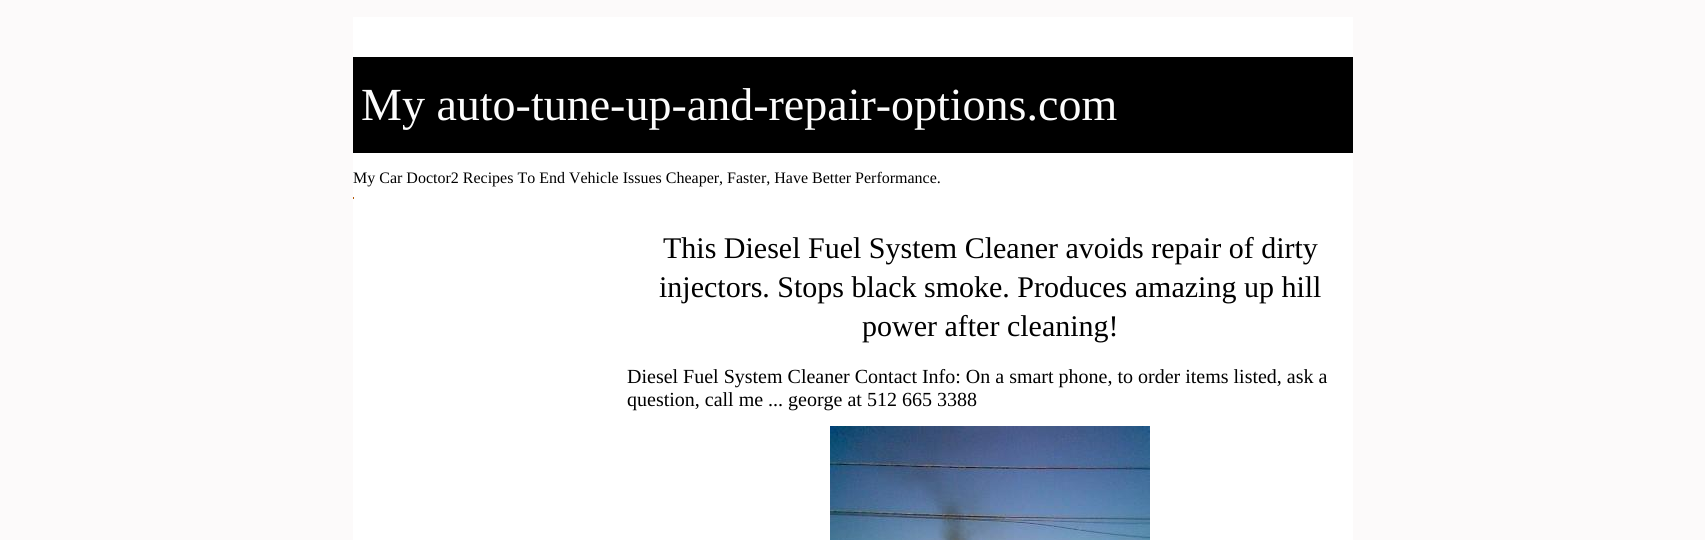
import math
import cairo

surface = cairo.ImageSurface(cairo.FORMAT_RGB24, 1705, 540)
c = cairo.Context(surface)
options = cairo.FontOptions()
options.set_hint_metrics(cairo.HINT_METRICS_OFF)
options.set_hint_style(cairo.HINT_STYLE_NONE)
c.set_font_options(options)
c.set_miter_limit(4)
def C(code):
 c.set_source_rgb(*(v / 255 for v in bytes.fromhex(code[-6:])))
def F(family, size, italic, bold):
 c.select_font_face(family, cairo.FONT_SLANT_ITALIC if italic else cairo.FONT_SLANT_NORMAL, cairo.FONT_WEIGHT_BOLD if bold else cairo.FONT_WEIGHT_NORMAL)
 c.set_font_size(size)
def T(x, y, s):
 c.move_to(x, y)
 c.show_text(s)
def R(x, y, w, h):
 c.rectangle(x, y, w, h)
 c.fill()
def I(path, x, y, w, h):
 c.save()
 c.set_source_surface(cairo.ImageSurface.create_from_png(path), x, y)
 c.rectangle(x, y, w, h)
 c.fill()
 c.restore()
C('fcfafa')
c.paint()
C('ffffff')
R(353,17,1000,523)
C('000000')
R(353,57,1000,96)
F('Liberation Serif',46,0,0)
C('fcfcfc')
T(361,120,'My auto-tune-up-and-repair-options.com')
F('Liberation Serif',16,0,0)
C('000000')
T(353,183,'My Car Doctor2 Recipes To End Vehicle Issues Cheaper, Faster, Have Better Performance.')
C('b55909')
R(353,197,1,2)
F('Liberation Serif',30,0,0)
C('000000')
T(663,258,'This Diesel Fuel System Cleaner avoids repair of dirty')
T(659,297,'injectors. Stops black smoke. Produces amazing up hill')
T(862,336,'power after cleaning!')
F('Liberation Serif',20,0,0)
T(627,383,'Diesel Fuel System Cleaner Contact Info: On a smart phone, to order items listed, ask a')
T(627,406,'question, call me ... george at 512 665 3388')
I('1.png',830,426,320,114)
surface.write_to_png('o.png')
